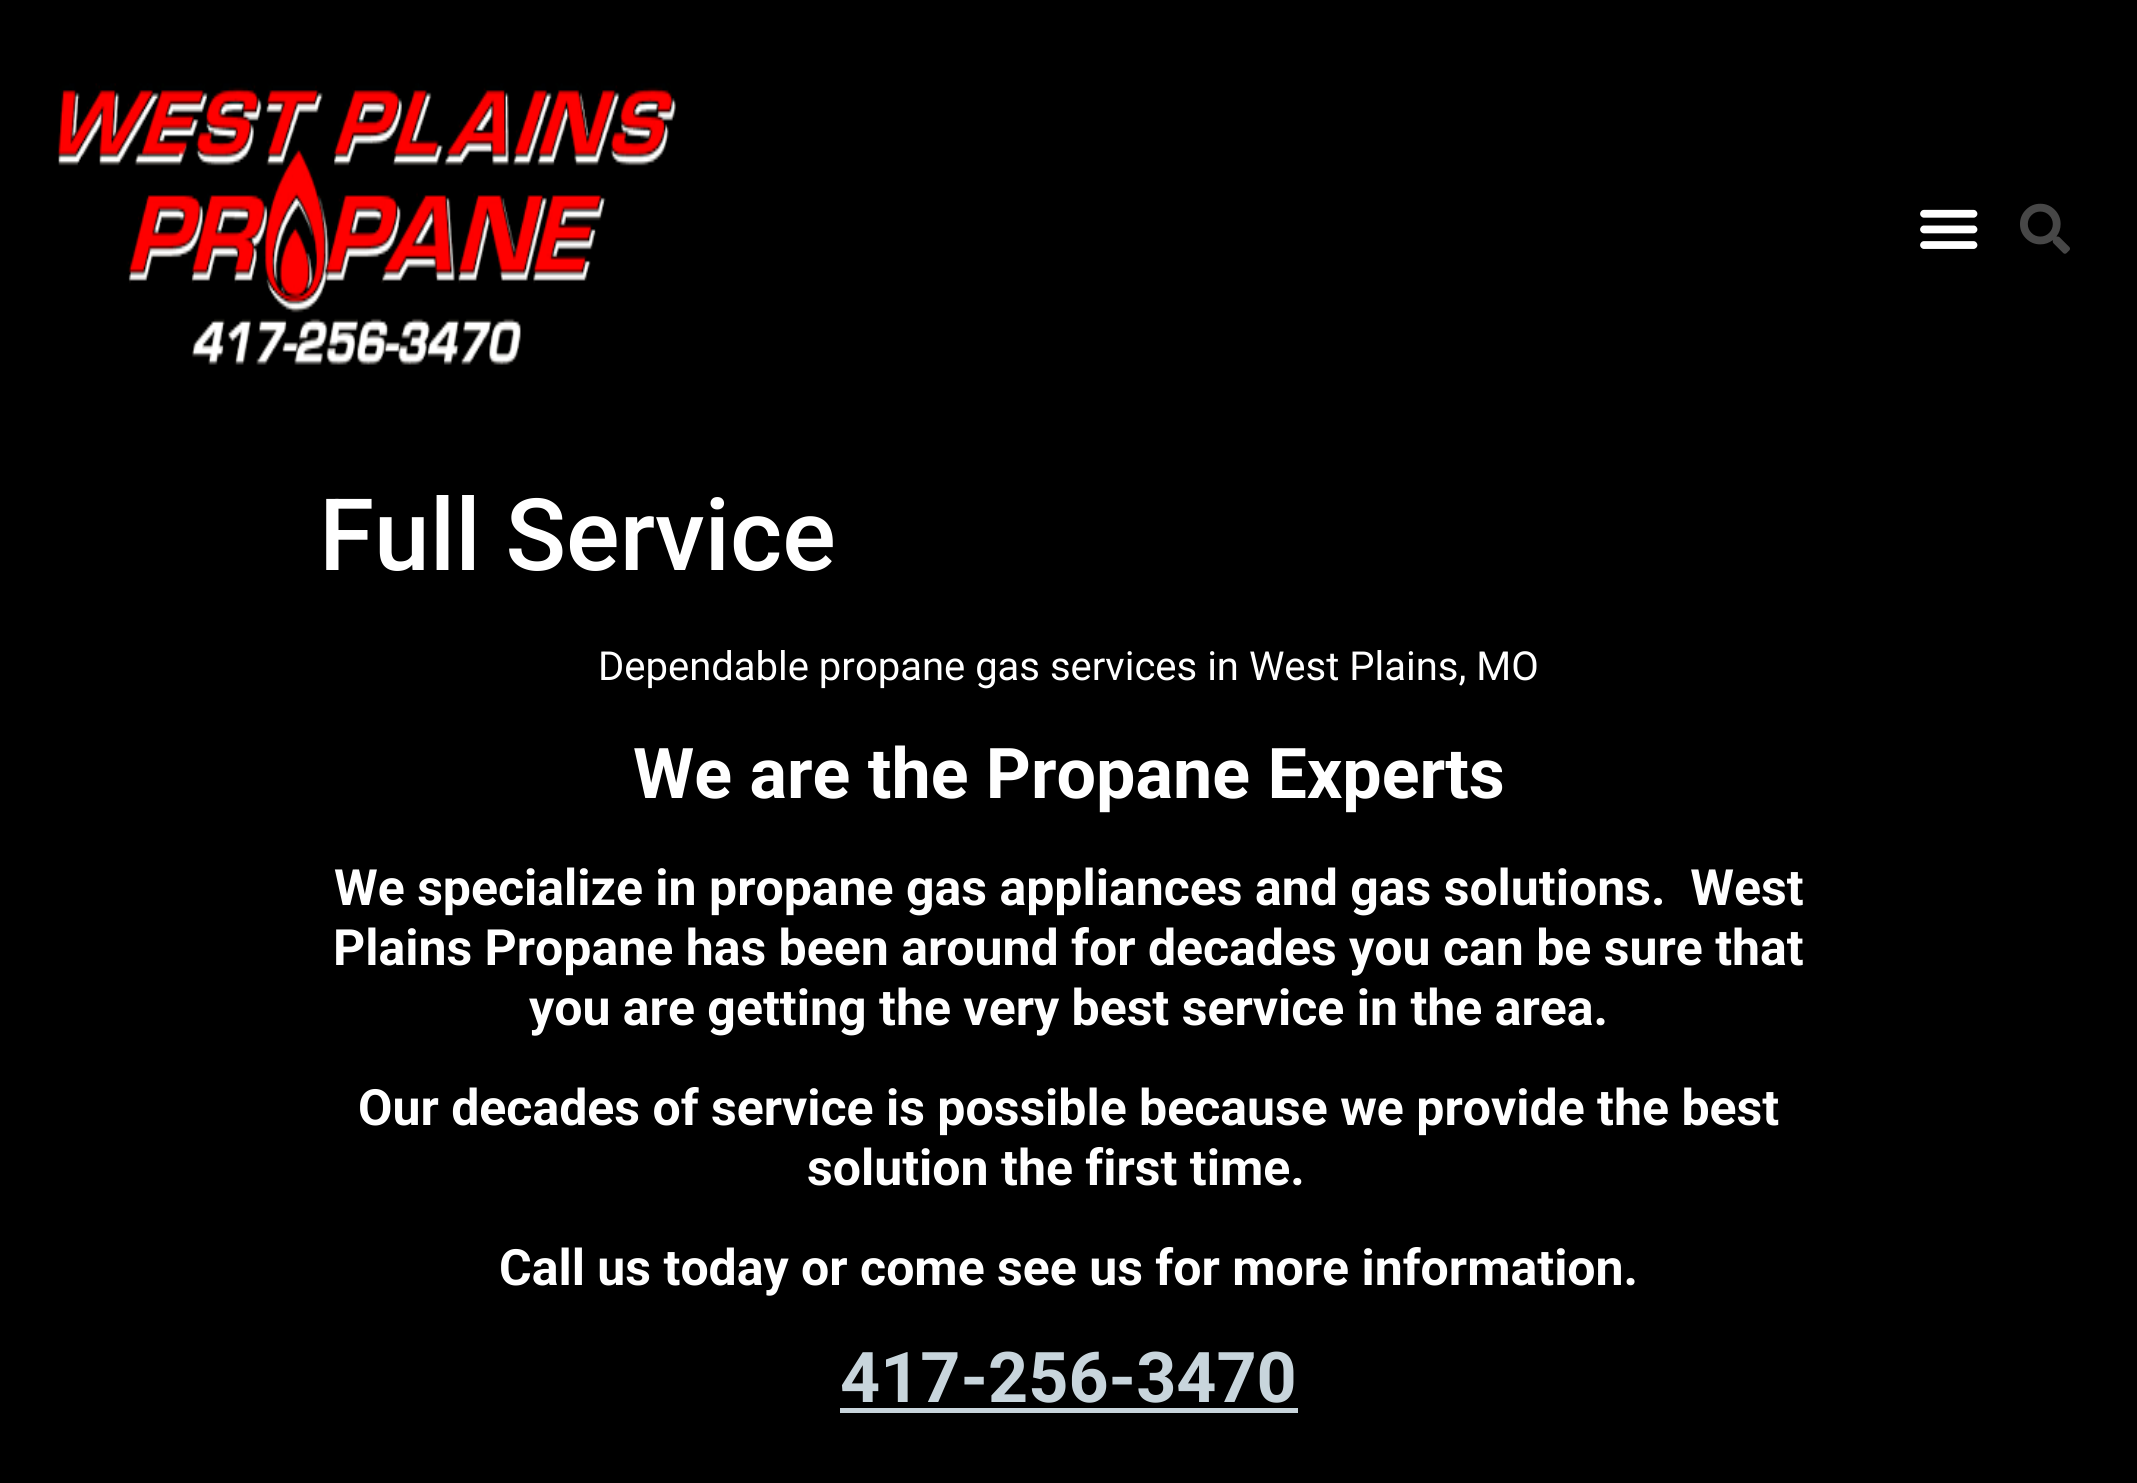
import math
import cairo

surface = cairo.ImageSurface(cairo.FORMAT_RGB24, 2137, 1483)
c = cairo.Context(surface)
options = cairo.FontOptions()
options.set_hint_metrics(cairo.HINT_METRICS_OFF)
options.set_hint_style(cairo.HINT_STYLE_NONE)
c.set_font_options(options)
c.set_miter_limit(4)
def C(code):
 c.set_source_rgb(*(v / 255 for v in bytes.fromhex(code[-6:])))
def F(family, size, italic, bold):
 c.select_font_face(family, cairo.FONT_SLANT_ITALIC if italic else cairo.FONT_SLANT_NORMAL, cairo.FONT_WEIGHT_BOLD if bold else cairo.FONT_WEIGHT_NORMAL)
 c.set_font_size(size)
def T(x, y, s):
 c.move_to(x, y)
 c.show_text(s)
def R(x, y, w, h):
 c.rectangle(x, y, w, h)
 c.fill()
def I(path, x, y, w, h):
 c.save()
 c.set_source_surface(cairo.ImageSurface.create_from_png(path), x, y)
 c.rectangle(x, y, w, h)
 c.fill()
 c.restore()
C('000000')
c.paint()
I('1.png',57,83,619,282)
I('2.png',1920,209,58,40)
I('3.png',2020,203,50,51)
F('Roboto Medium',100,0,0)
C('ffffff')
T(319,570,'Full Service')
F('Roboto',40,0,0)
T(598,680,'Dependable propane gas services in West Plains, MO')
F('Roboto',70,0,1)
T(633,798,'We are the Propane Experts')
F('Roboto',50,0,1)
T(334,905,'We specialize in propane gas appliances and gas solutions.  West')
T(333,965,'Plains Propane has been around for decades you can be sure that')
T(529,1025,'you are getting the very best service in the area.')
T(358,1125,'Our decades of service is possible because we provide the best')
T(807,1185,'solution the first time.')
T(499,1285,'Call us today or come see us for more information.')
F('Roboto',70,0,1)
C('c8d5dc')
T(840,1402,'417-256-3470')
R(840,1408,458,5)
surface.write_to_png('o.png')
